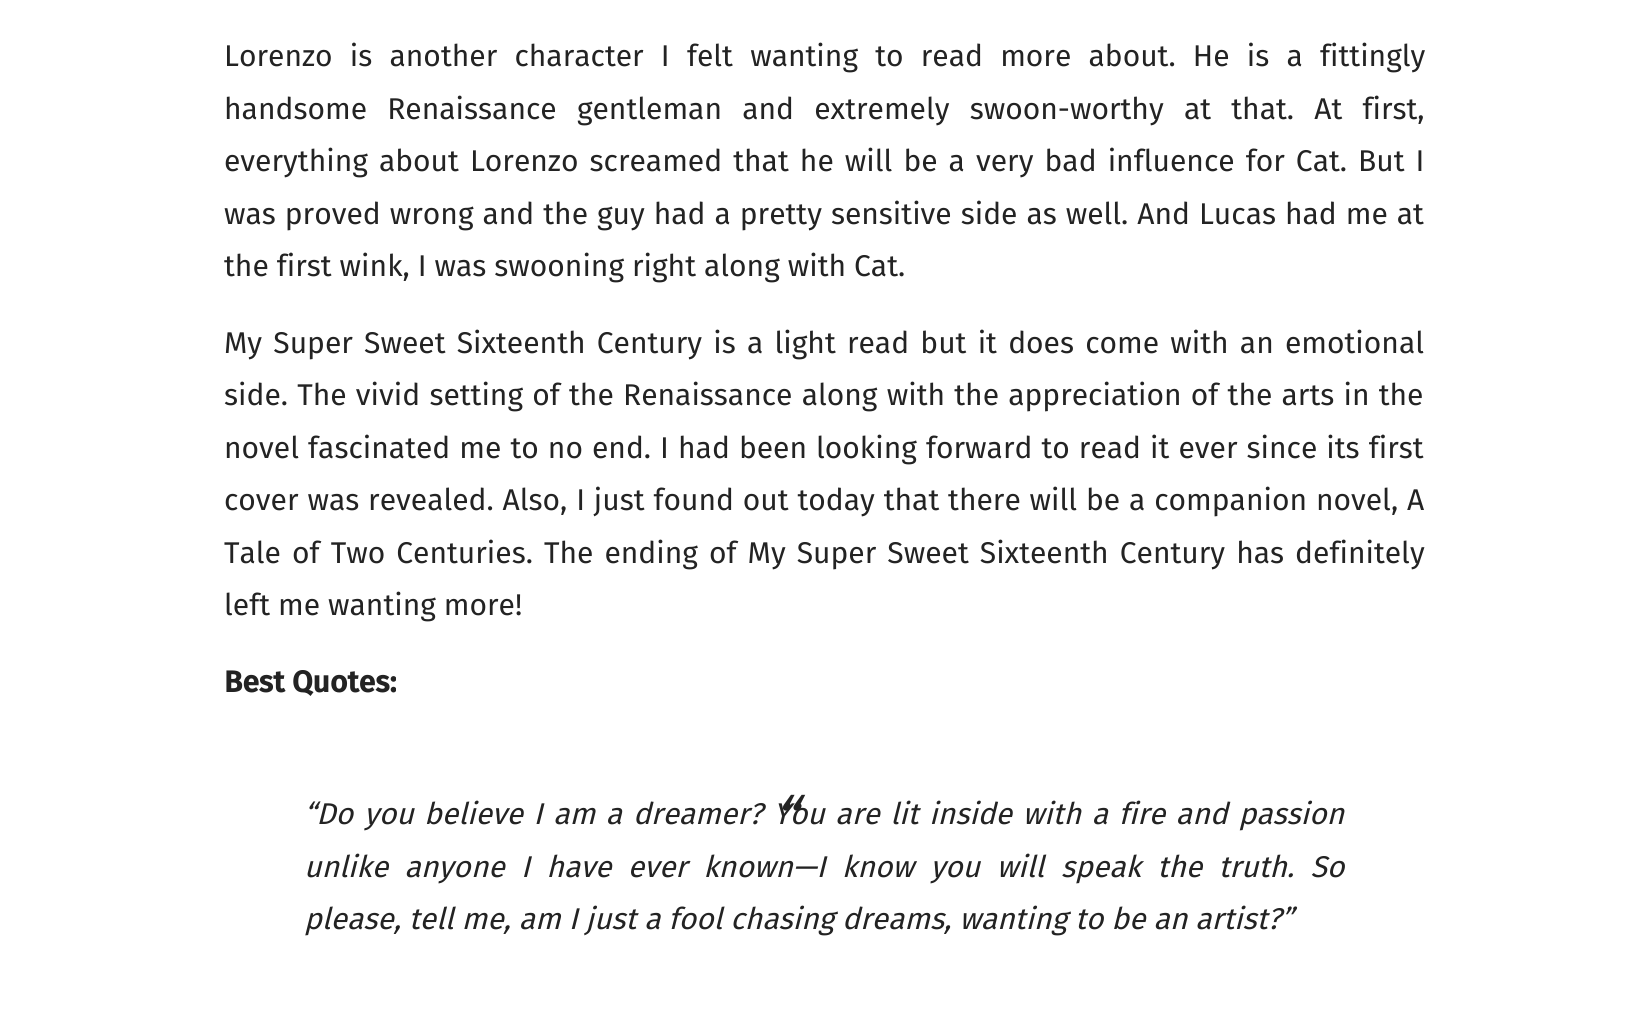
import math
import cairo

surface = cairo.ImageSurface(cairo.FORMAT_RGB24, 1648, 1036)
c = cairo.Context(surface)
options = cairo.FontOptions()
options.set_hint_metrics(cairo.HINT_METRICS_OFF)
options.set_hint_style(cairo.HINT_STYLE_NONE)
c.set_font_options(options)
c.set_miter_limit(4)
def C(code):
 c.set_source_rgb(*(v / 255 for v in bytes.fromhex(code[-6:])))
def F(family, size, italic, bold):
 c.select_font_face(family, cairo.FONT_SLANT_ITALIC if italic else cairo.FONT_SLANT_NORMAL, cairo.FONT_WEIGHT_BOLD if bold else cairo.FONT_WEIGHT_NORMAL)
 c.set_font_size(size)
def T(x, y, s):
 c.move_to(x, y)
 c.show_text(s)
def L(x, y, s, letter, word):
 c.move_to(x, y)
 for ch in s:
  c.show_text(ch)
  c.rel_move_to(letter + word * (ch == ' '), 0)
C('ffffff')
c.paint()
F('Fira Sans',30,0,0)
C('232323')
L(224,66,'Lorenzo is another character I felt wanting to read more about. He is a fittingly',0,9.25)
L(224,119,'handsome Renaissance gentleman and extremely swoon-worthy at that. At first,',0,12.25)
L(224,171,'everything about Lorenzo screamed that he will be a very bad influence for Cat. But I',0,3.1)
L(224,224,'was proved wrong and the guy had a pretty sensitive side as well. And Lucas had me at',0,1)
T(224,276,'the first wink, I was swooning right along with Cat.')
L(224,353,'My Super Sweet Sixteenth Century is a light read but it does come with an emotional',0,3.25)
L(224,405,'side. The vivid setting of the Renaissance along with the appreciation of the arts in the',0,1.25)
L(224,458,'novel fascinated me to no end. I had been looking forward to read it ever since its first',0,1.1)
L(224,510,'cover was revealed. Also, I just found out today that there will be a companion novel, A',0,.9)
L(224,563,'Tale of Two Centuries. The ending of My Super Sweet Sixteenth Century has definitely',0,3.1)
T(224,615,'left me wanting more!')
F('Fira Sans',30,0,1)
T(224,692,'Best Quotes:')
F('Fira Sans',30,1,0)
L(424,824,'believe I am a dreamer? You are lit inside with a fire and passion',0,2.75)
F('Fira Sans',60,1,0)
T(772,840,'“')
F('Fira Sans',30,1,0)
T(304,824,'“Do')
T(364,824,'you')
L(304,877,'unlike anyone I have ever known—I know you will',0,8.5)
L(1061,877,'speak the truth. So',0,8.5)
T(304,929,'please, tell me, am I just a fool chasing dreams, wanting to be an artist?”')
surface.write_to_png('o.png')
